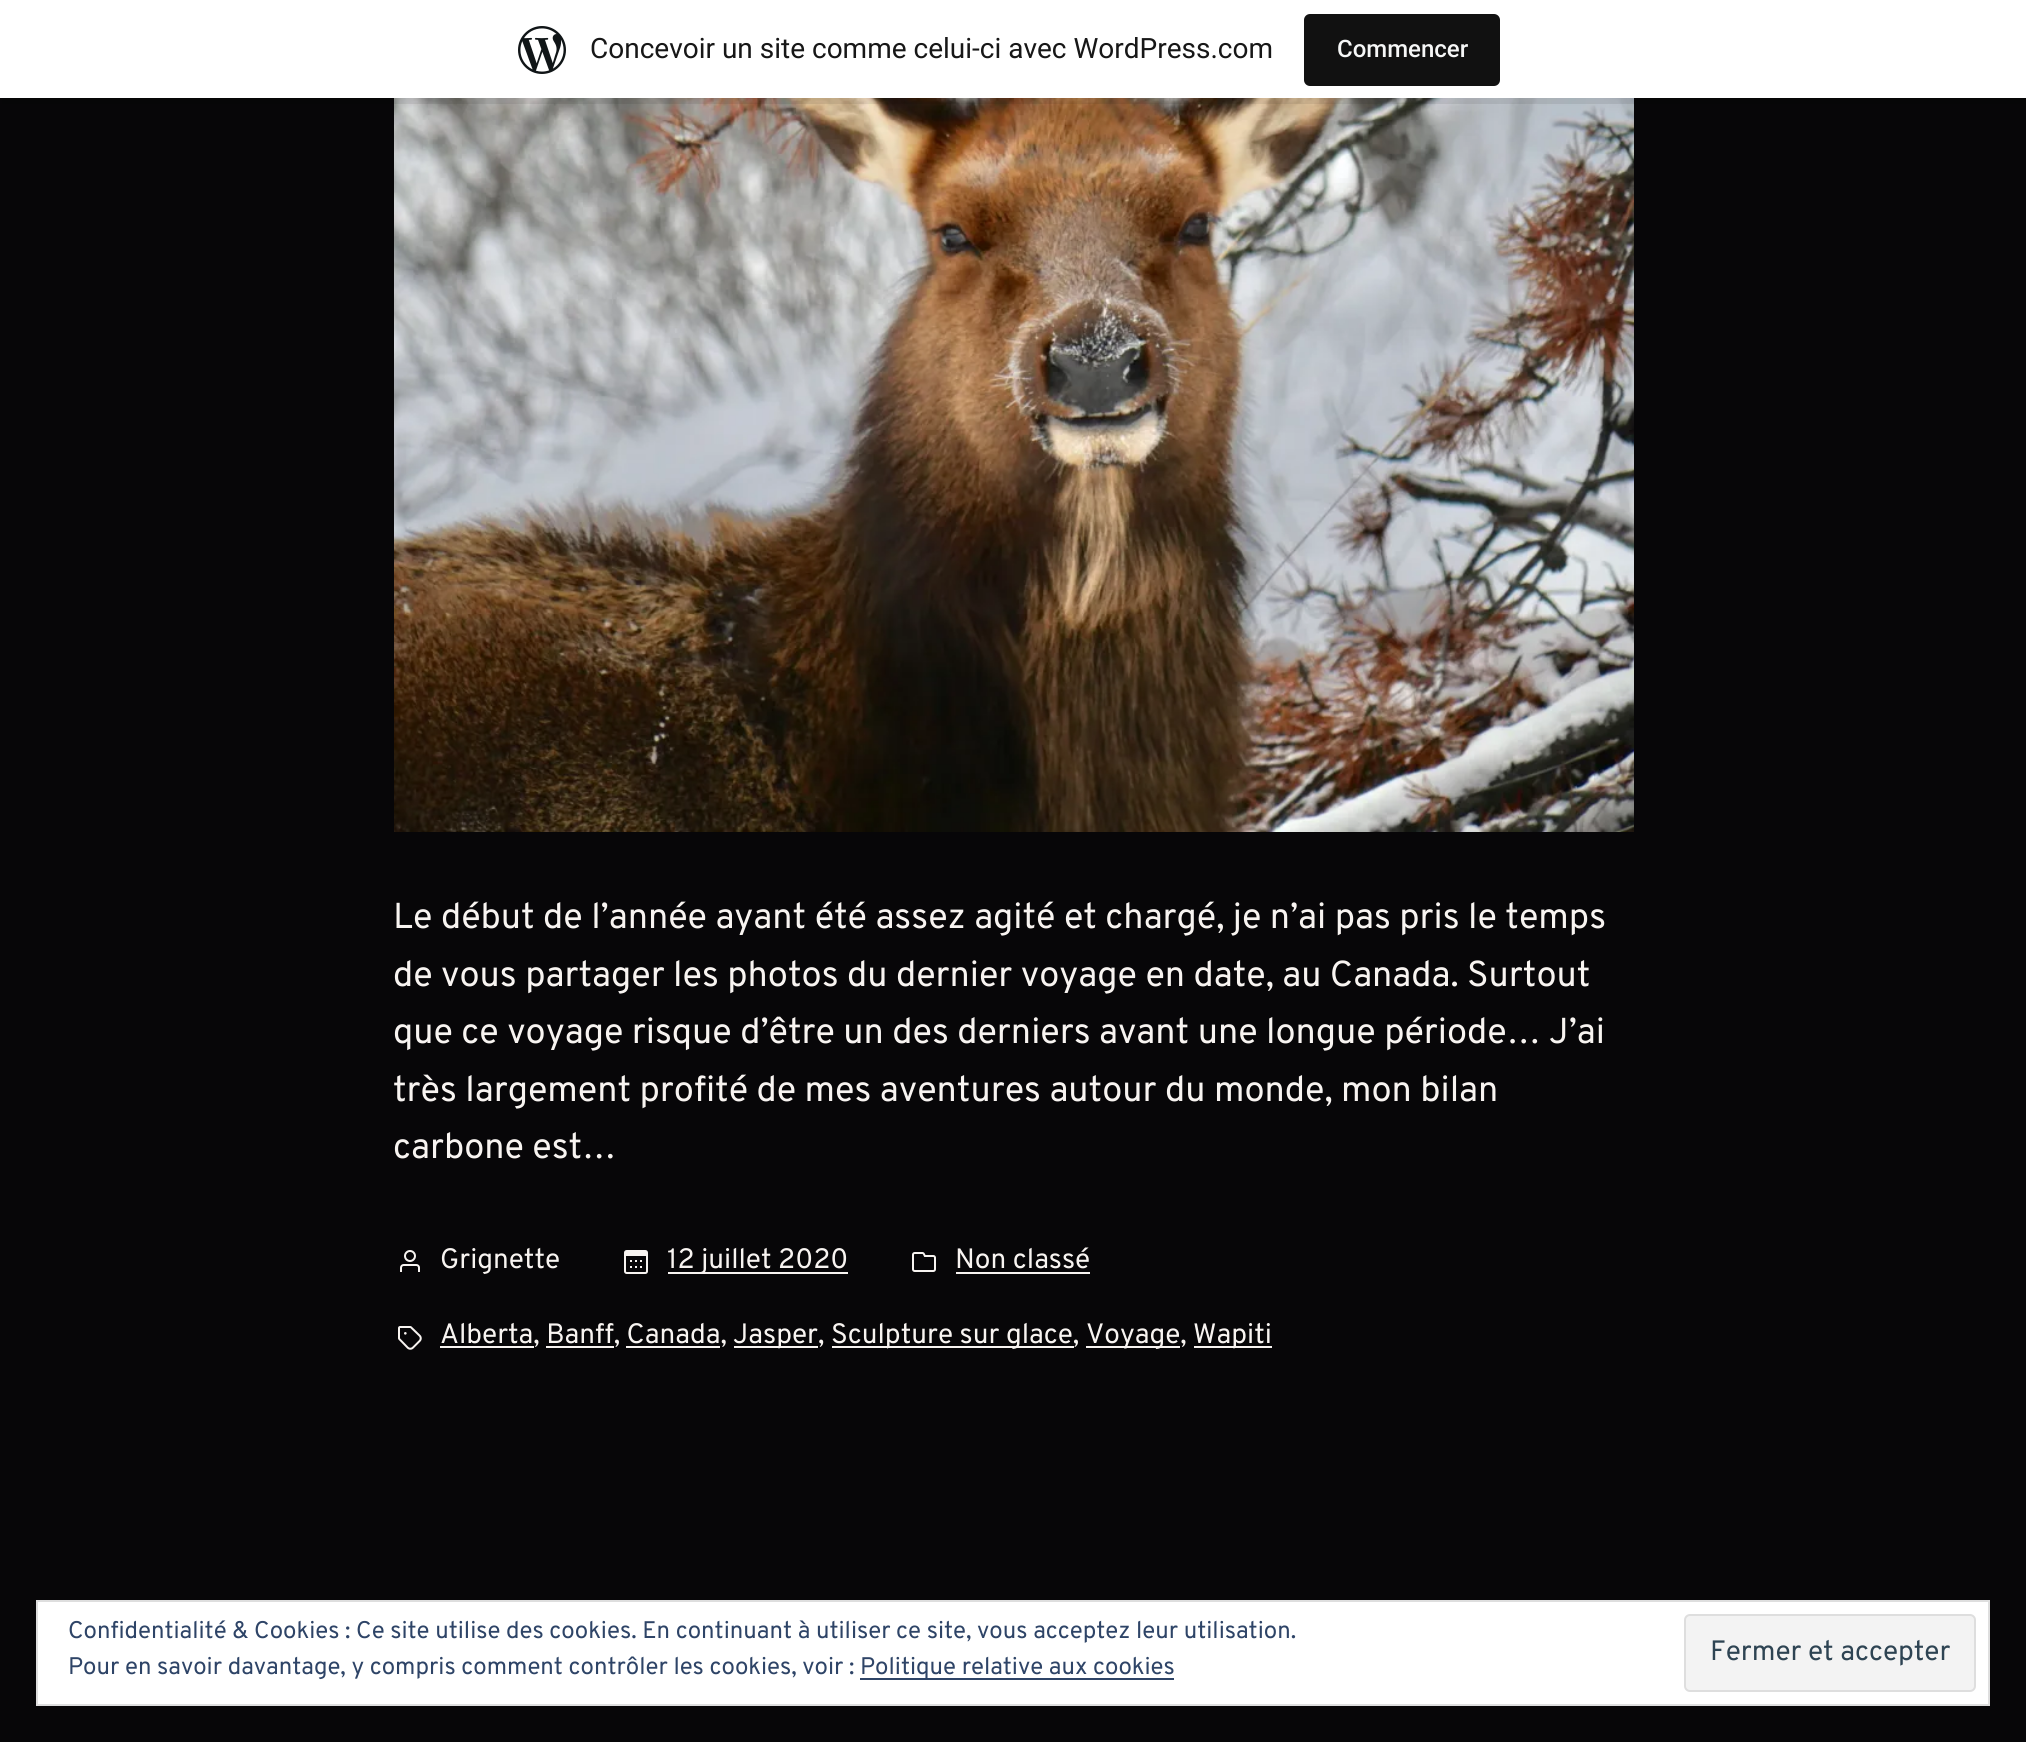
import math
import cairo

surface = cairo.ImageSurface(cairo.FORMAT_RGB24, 2026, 1742)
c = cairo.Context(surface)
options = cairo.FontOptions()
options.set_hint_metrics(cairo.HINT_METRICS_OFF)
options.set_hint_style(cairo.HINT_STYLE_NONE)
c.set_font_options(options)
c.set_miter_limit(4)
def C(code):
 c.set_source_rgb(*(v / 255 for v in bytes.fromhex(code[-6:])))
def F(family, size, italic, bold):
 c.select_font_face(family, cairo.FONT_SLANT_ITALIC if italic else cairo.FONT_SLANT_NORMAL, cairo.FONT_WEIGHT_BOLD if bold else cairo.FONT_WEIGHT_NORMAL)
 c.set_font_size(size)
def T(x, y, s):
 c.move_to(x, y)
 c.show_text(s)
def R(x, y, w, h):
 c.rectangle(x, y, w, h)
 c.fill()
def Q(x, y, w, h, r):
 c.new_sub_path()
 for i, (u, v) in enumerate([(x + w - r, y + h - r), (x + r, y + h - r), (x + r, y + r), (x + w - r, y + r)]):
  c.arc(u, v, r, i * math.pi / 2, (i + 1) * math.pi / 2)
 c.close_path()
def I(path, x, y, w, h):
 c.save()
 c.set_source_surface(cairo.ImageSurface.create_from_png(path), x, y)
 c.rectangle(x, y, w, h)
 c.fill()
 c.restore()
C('070608')
c.paint()
I('2.png',394,98,1240,734)
c.set_source_rgba(0,0,0,0.08)
c.new_path()
c.move_to(2,98)
c.line_to(2,104)
c.line_to(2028,104)
c.line_to(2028,6)
c.line_to(2026,6)
c.line_to(2026,98)
c.close_path()
c.fill()
C('ffffff')
R(0,0,2026,98)
I('1.png',518,26,48,48)
F('Roboto',28,0,0)
C('171717')
T(590,58,'Concevoir un site comme celui-ci avec WordPress.com')
C('111111')
Q(1304,14,196,72,6)
c.fill()
F('Roboto Medium',24,0,0)
C('f6f7f7')
T(1337,57,'Commencer')
F('Overpass',36,0,0)
C('f8f4f1')
T(393,928,'Le début de l’année ayant été assez agité et chargé, je n’ai pas pris le temps')
T(393,986,'de vous partager les photos du dernier voyage en date, au Canada. Surtout')
T(393,1043,'que ce voyage risque d’être un des derniers avant une longue période… J’ai')
T(393,1101,'très largement profité de mes aventures autour du monde, mon bilan')
T(393,1158,'carbone est…')
I('3.png',400,1250,20,22)
F('Overpass',28,0,0)
T(440,1268,'Grignette')
I('4.png',624,1250,24,24)
R(668,1272,180,2)
T(667,1268,'12 juillet 2020')
I('5.png',912,1252,24,20)
T(955,1268,'Non classé')
R(956,1272,134,2)
I('6.png',398,1326,24,24)
R(440,1346,94,2)
T(440,1343,'Alberta, Banff, Canada,')
R(734,1346,84,2)
T(733,1343,'Jasper,')
R(832,1346,242,2)
T(831,1343,'Sculpture sur glace,')
R(1086,1346,94,2)
T(1086,1343,'Voyage,')
R(1194,1346,78,2)
T(1193,1343,'Wapiti')
R(546,1346,68,2)
R(626,1346,94,2)
C('ffffff')
c.rectangle(37,1601,1952,104)
c.fill_preserve()
C('dedede')
c.stroke()
F('Overpass',24,0,0)
C('2e4467')
T(68,1638,'Confidentialité & Cookies : Ce site utilise des cookies. En continuant à utiliser ce site, vous acceptez leur utilisation.')
T(68,1674,'Pour en savoir davantage, y compris comment contrôler les cookies, voir :')
R(860,1678,314,2)
T(860,1674,'Politique relative aux cookies')
C('f3f3f3')
Q(1685,1615,290,76,5)
c.fill_preserve()
C('dedede')
c.stroke()
F('Overpass',28,0,0)
C('2e4453')
T(1710,1660,'Fermer et accepter')
surface.write_to_png('o.png')
